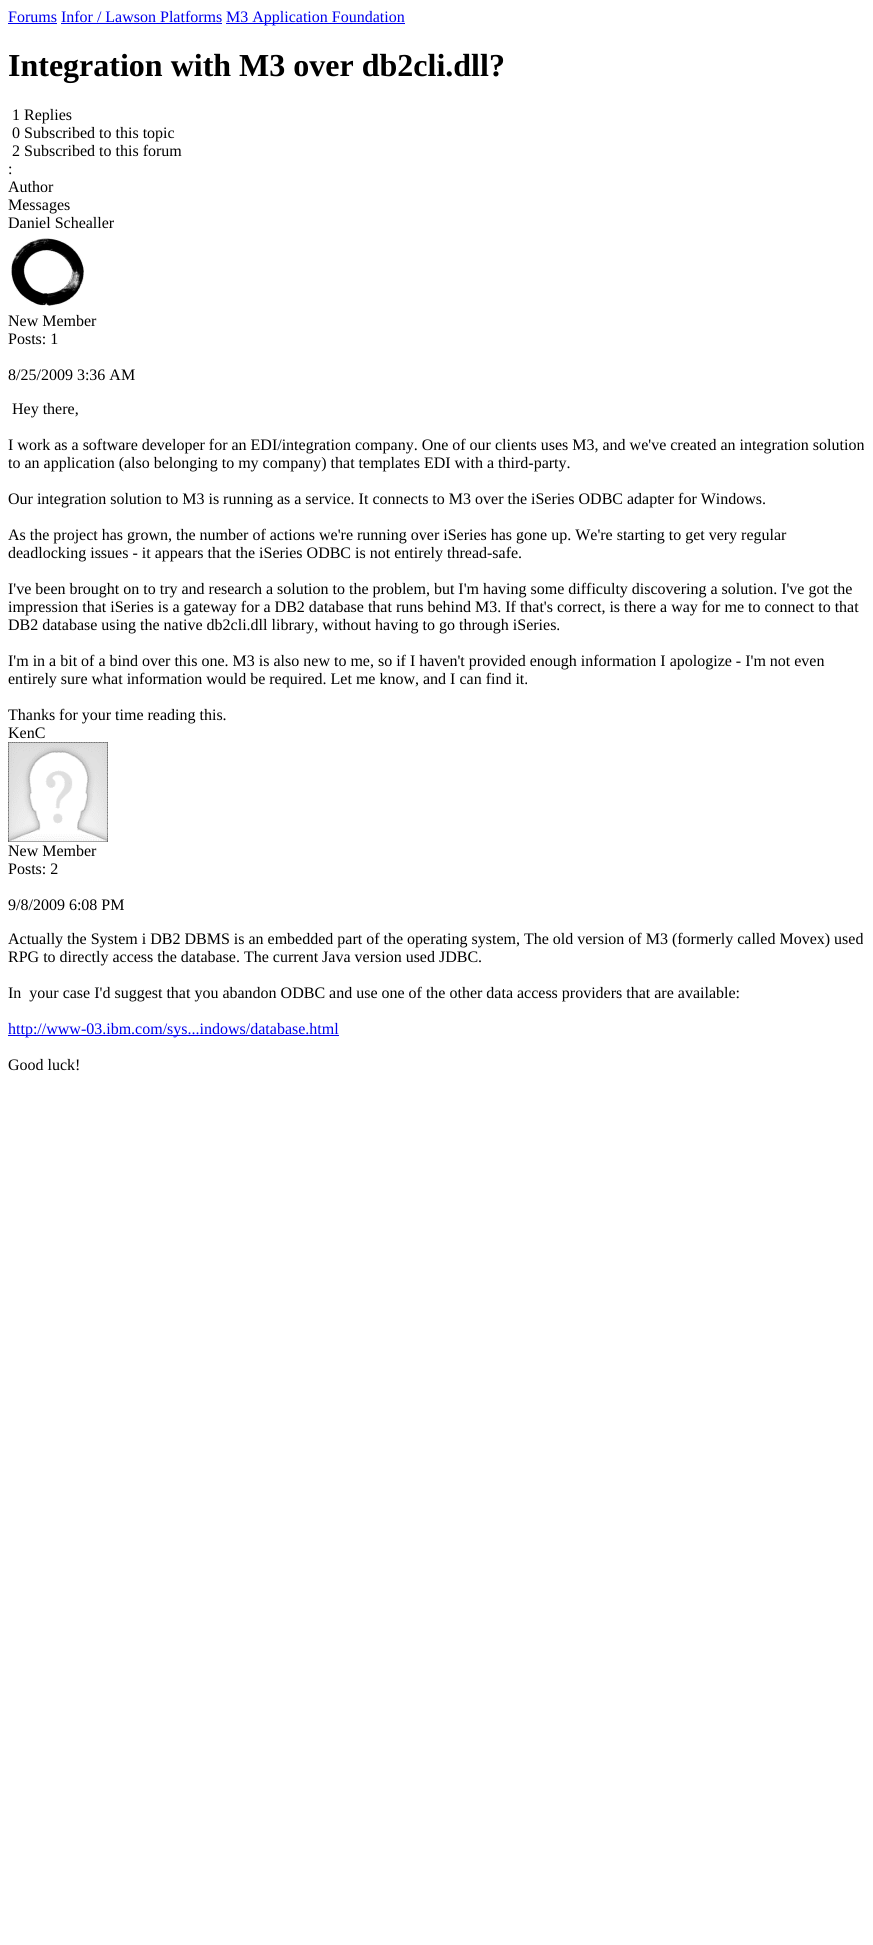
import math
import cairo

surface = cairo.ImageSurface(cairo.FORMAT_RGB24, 873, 1945)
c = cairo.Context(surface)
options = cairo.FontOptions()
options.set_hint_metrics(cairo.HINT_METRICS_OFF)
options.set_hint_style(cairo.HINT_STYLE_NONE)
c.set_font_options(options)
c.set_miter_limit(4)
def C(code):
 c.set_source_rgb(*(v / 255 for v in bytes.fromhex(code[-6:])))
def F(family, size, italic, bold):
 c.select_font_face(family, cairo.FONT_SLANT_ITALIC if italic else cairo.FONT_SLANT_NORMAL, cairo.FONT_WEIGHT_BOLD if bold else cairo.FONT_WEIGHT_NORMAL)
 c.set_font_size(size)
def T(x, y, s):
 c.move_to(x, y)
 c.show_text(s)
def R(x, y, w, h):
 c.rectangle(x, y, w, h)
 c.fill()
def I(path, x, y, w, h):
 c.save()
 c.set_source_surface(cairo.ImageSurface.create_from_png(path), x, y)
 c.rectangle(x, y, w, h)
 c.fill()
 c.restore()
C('ffffff')
c.paint()
F('Liberation Serif',16,0,0)
C('0000ee')
T(8,22,'Forums Infor / Lawson Platforms')
R(8,23,49,1)
R(226,23,179,1)
T(226,22,'M3 Application Foundation')
R(61,23,161,1)
F('Liberation Serif',32,0,1)
C('000000')
T(8,76,'Integration with M3 over db2cli.dll?')
F('Liberation Serif',16,0,0)
T(12,120,'1 Replies')
T(12,138,'0 Subscribed to this topic')
T(12,156,'2 Subscribed to this forum')
T(8,174,':')
T(8,192,'Author')
T(8,210,'Messages')
T(8,228,'Daniel Schealler')
I('1.png',11,238,74,68)
T(8,326,'New Member')
T(8,344,'Posts: 1')
T(8,380,'8/25/2009 3:36 AM')
T(12,414,'Hey there,')
T(8,450,'I work as a software developer for an EDI/integration company. One of our clients uses M3, and we\'ve created an integration solution')
T(8,468,'to an application (also belonging to my company) that templates EDI with a third-party.')
T(8,504,'Our integration solution to M3 is running as a service. It connects to M3 over the iSeries ODBC adapter for Windows.')
T(8,540,'As the project has grown, the number of actions we\'re running over iSeries has gone up. We\'re starting to get very regular')
T(8,558,'deadlocking issues - it appears that the iSeries ODBC is not entirely thread-safe.')
T(8,594,'I\'ve been brought on to try and research a solution to the problem, but I\'m having some difficulty discovering a solution. I\'ve got the')
T(8,612,'impression that iSeries is a gateway for a DB2 database that runs behind M3. If that\'s correct, is there a way for me to connect to that')
T(8,630,'DB2 database using the native db2cli.dll library, without having to go through iSeries.')
T(8,666,'I\'m in a bit of a bind over this one. M3 is also new to me, so if I haven\'t provided enough information I apologize - I\'m not even')
T(8,684,'entirely sure what information would be required. Let me know, and I can find it.')
T(8,720,'Thanks for your time reading this.')
T(8,738,'KenC')
I('2.png',8,742,100,100)
T(8,856,'New Member')
T(8,874,'Posts: 2')
T(8,910,'9/8/2009 6:08 PM')
T(8,944,'Actually the System i DB2 DBMS is an embedded part of the operating system, The old version of M3 (formerly called Movex) used')
T(8,962,'RPG to directly access the database. The current Java version used JDBC.')
T(8,998,'In  your case I\'d suggest that you abandon ODBC and use one of the other data access providers that are available:')
C('0000ee')
R(8,1035,331,1)
T(8,1034,'http://www-03.ibm.com/sys...indows/database.html')
C('000000')
T(8,1070,'Good luck!')
surface.write_to_png('o.png')
